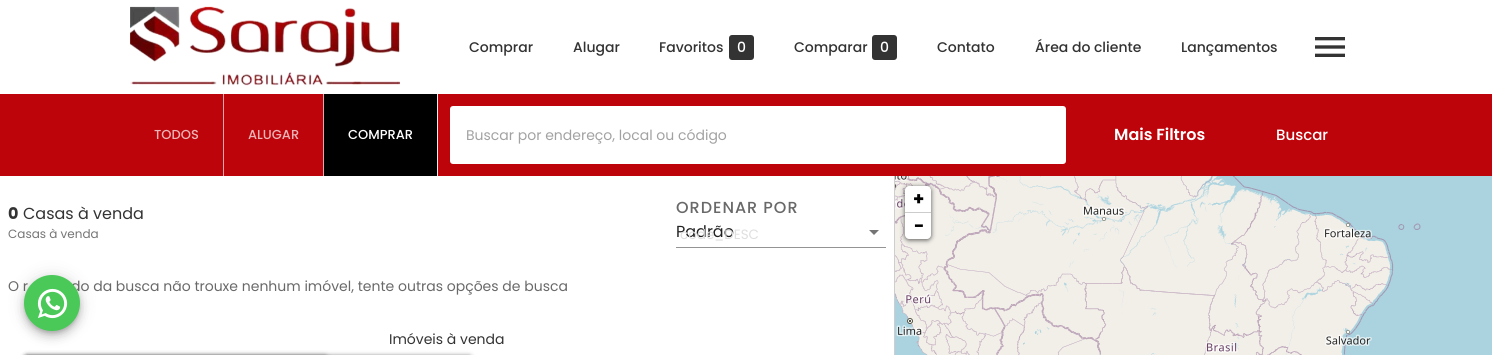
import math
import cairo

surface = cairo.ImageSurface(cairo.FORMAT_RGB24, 1492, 355)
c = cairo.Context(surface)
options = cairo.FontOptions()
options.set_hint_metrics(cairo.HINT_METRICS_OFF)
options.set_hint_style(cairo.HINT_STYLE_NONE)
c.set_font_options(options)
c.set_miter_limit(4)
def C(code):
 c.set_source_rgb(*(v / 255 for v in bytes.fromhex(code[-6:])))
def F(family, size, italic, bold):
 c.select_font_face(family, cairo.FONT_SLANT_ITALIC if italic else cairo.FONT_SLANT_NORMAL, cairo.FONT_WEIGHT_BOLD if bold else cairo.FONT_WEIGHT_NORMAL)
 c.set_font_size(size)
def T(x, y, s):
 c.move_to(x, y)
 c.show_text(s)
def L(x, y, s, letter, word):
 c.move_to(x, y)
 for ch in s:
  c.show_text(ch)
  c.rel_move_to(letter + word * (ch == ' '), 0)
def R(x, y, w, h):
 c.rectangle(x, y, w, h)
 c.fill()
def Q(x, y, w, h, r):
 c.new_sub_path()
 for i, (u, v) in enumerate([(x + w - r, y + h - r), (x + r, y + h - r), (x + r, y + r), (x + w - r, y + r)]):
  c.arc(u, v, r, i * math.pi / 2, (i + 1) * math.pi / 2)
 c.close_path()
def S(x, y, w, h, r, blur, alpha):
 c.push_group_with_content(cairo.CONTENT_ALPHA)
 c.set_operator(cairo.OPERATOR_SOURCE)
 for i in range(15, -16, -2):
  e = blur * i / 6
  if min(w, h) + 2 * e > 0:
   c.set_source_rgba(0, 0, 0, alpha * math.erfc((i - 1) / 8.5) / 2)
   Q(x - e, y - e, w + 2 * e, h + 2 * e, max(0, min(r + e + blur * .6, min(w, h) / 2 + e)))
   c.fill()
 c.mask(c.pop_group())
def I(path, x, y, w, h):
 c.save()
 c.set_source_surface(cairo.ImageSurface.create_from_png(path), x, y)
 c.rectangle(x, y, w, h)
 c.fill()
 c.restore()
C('ffffff')
c.paint()
I('1.png',130,6,270,80)
F('Poppins Medium',14,0,0)
C('333333')
T(469,52,'Comprar')
T(573,52,'Alugar')
T(659,52,'Favoritos')
Q(729,35,25,25,3)
c.fill()
C('ffffff')
T(737,52,'0')
C('333333')
T(794,52,'Comparar')
Q(872,35,25,25,3)
c.fill()
C('ffffff')
T(880,52,'0')
C('333333')
T(937,52,'Contato')
T(1035,52,'Área do cliente')
T(1181,52,'Lançamentos')
I('2.png',1315,37,30,20)
C('bc040a')
R(0,94,1492,82)
C('dfa8aa')
R(223,94,1,82)
F('Poppins Medium',13,0,0)
C('ebb4b6')
T(154,139,'TODOS')
C('dfa8aa')
R(323,94,1,82)
C('ebb4b6')
T(248,139,'ALUGAR')
C('000000')
R(324,94,113,82)
C('eeeeee')
R(437,94,1,82)
C('ffffff')
T(348,139,'COMPRAR')
Q(450,106,616,58,3)
c.fill()
F('Poppins',14,0,0)
C('a2a2a2')
T(466,140,'Buscar por endereço, local ou código')
F('Poppins SemiBold',16,0,0)
C('ffffff')
T(1114,140,'Mais Filtros')
F('Poppins Medium',15,0,0)
T(1276,140,'Buscar')
C('cecece')
R(894,176,1,179)
F('Poppins',16,0,1)
C('333333')
T(8,219,'0')
F('Poppins',16,0,0)
T(23,219,'Casas à venda')
F('Poppins',12,0,0)
C('757575')
T(8,238,'Casas à venda')
F('Poppins Medium',16,0,0)
C('696969')
L(676,213,'ORDENAR POR',1,0)
F('Poppins',16,0,0)
C('212121')
T(676,237,'Padrão')
F('Poppins',13.5,0,0)
C('dfdfdf')
T(680,239,'code_DESC')
C('757575')
c.new_path()
c.move_to(869,230)
c.line_to(874,235)
c.line_to(879,230)
c.close_path()
c.fill()
C('949494')
R(676,247,210,1)
F('Poppins',14,0,0)
C('696969')
T(8,291,'O r')
T(71,291,'do da busca não trouxe nenhum imóvel, tente outras opções de busca')
C('333333')
T(389,344,'Imóveis à venda')
I('3.png',895,176,123,7)
I('4.png',1018,176,256,7)
C('aad3df')
R(1274,176,218,7)
I('5.png',895,183,123,172)
I('6.png',1018,183,256,172)
I('7.png',1274,183,218,172)
C('000000')
S(905,187,26,53,4,2.5,.65)
C('ffffff')
c.new_path()
c.move_to(909,186)
c.line_to(927,186)
c.curve_to(929,186,931,188,931,190)
c.line_to(931,213)
c.line_to(905,213)
c.line_to(905,190)
c.curve_to(905,188,907,186,909,186)
c.close_path()
c.fill()
C('cccccc')
R(905,212,26,1)
F('Poppins',18,0,1)
C('000000')
T(913,205,'+')
C('ffffff')
c.new_path()
c.move_to(905,213)
c.line_to(931,213)
c.line_to(931,235)
c.curve_to(931,237,929,239,927,239)
c.line_to(909,239)
c.curve_to(907,239,905,237,905,235)
c.close_path()
c.fill()
C('000000')
T(914,232,'−')
C('000000')
S(24,276,56,56,28,9,.12)
S(24,281,56,56,28,5,.14)
S(25,279,54,54,27,2.5,.2)
C('4ac959')
c.arc(52,303,28,0,2 * math.pi)
c.fill()
I('8.png',37,288,31,31)
C('000000')
S(23,355,306,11,5,2,.4)
S(23,355,450,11,5,2,.4)
surface.write_to_png('o.png')
